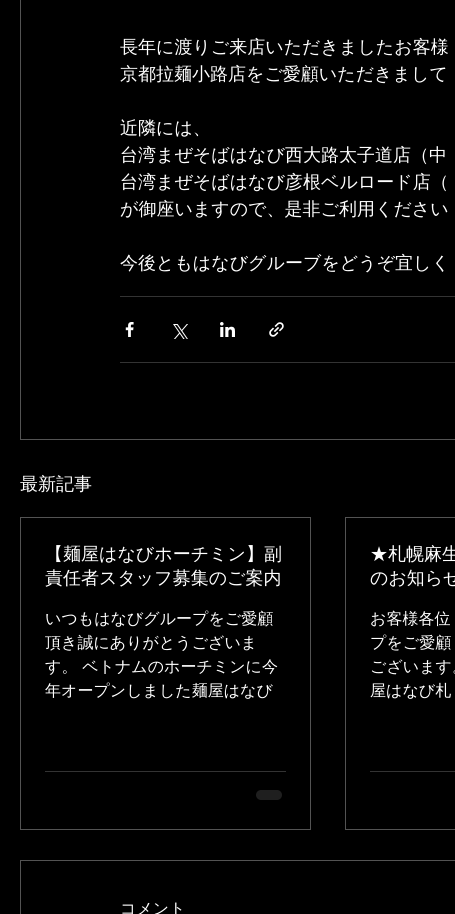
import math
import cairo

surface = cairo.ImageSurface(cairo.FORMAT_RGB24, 455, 914)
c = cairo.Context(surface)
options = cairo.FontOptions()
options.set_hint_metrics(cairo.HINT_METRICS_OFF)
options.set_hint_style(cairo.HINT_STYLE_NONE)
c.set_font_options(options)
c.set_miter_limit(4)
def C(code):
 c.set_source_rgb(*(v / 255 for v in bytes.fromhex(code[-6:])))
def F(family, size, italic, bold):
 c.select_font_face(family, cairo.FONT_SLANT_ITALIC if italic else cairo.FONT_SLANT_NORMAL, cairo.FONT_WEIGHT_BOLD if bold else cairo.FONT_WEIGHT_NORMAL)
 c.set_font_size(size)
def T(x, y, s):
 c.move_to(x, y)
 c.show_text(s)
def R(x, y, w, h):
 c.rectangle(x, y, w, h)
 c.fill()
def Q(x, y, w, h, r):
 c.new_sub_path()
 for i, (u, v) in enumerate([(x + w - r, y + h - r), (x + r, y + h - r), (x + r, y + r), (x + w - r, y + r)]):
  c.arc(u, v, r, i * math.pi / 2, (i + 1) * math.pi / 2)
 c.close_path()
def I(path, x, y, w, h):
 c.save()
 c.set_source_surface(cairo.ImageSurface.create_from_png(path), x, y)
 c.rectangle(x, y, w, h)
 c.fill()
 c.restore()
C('000000')
c.paint()
c.rectangle(20.5,-.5,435,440)
C('535353')
c.set_line_width(1)
c.stroke()
F('WenQuanYi Zen Hei Medium',18,0,0)
C('ffffff')
T(120,53,'長年に渡りご来店いただきましたお客様')
T(120,80,'京都拉麺小路店をご愛顧いただきまして')
T(120,134,'近隣には、')
T(120,161,'台湾まぜそばはなび西大路太子道店（中')
T(120,188,'台湾まぜそばはなび彦根ベルロード店（')
T(120,215,'が御座いますので、是非ご利用ください')
T(120,269,'今後ともはなびグルーブをどうぞ宜しく')
C('333333')
R(120,296,335,1)
I('1.png',125,322,9,15)
I('2.png',173,324,15,15)
I('3.png',220,322,15,15)
I('4.png',269,322,15,15)
R(120,362,335,1)
C('ffffff')
T(20,490,'最新記事')
c.rectangle(20.5,517.5,290,312)
C('535353')
c.stroke()
C('ffffff')
T(45,560,'【麺屋はなびホーチミン】副')
T(45,584,'責任者スタッフ募集のご案内')
F('WenQuanYi Zen Hei Medium',16,0,0)
T(45,624,'いつもはなびグループをご愛顧')
T(45,648,'頂き誠にありがとうございま')
T(45,672,'す。 ベトナムのホーチミンに今')
T(45,696,'年オープンしました麺屋はなび')
C('333333')
R(45,771,241,1)
C('1f1f1f')
Q(256,790,26,10,5)
c.fill()
c.rectangle(345.5,517.5,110,312)
C('535353')
c.stroke()
F('WenQuanYi Zen Hei Medium',18,0,0)
C('ffffff')
T(370,560,'★札幌麻生')
T(370,584,'のお知らせ')
F('WenQuanYi Zen Hei Medium',16,0,0)
T(370,624,'お客様各位')
T(370,648,'プをご愛顧')
T(370,672,'ございます。')
T(370,696,'屋はなび札')
C('333333')
R(370,771,85,1)
c.rectangle(20.5,860.5,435,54)
C('535353')
c.stroke()
C('ffffff')
T(120,914,'コメント')
surface.write_to_png('o.png')
